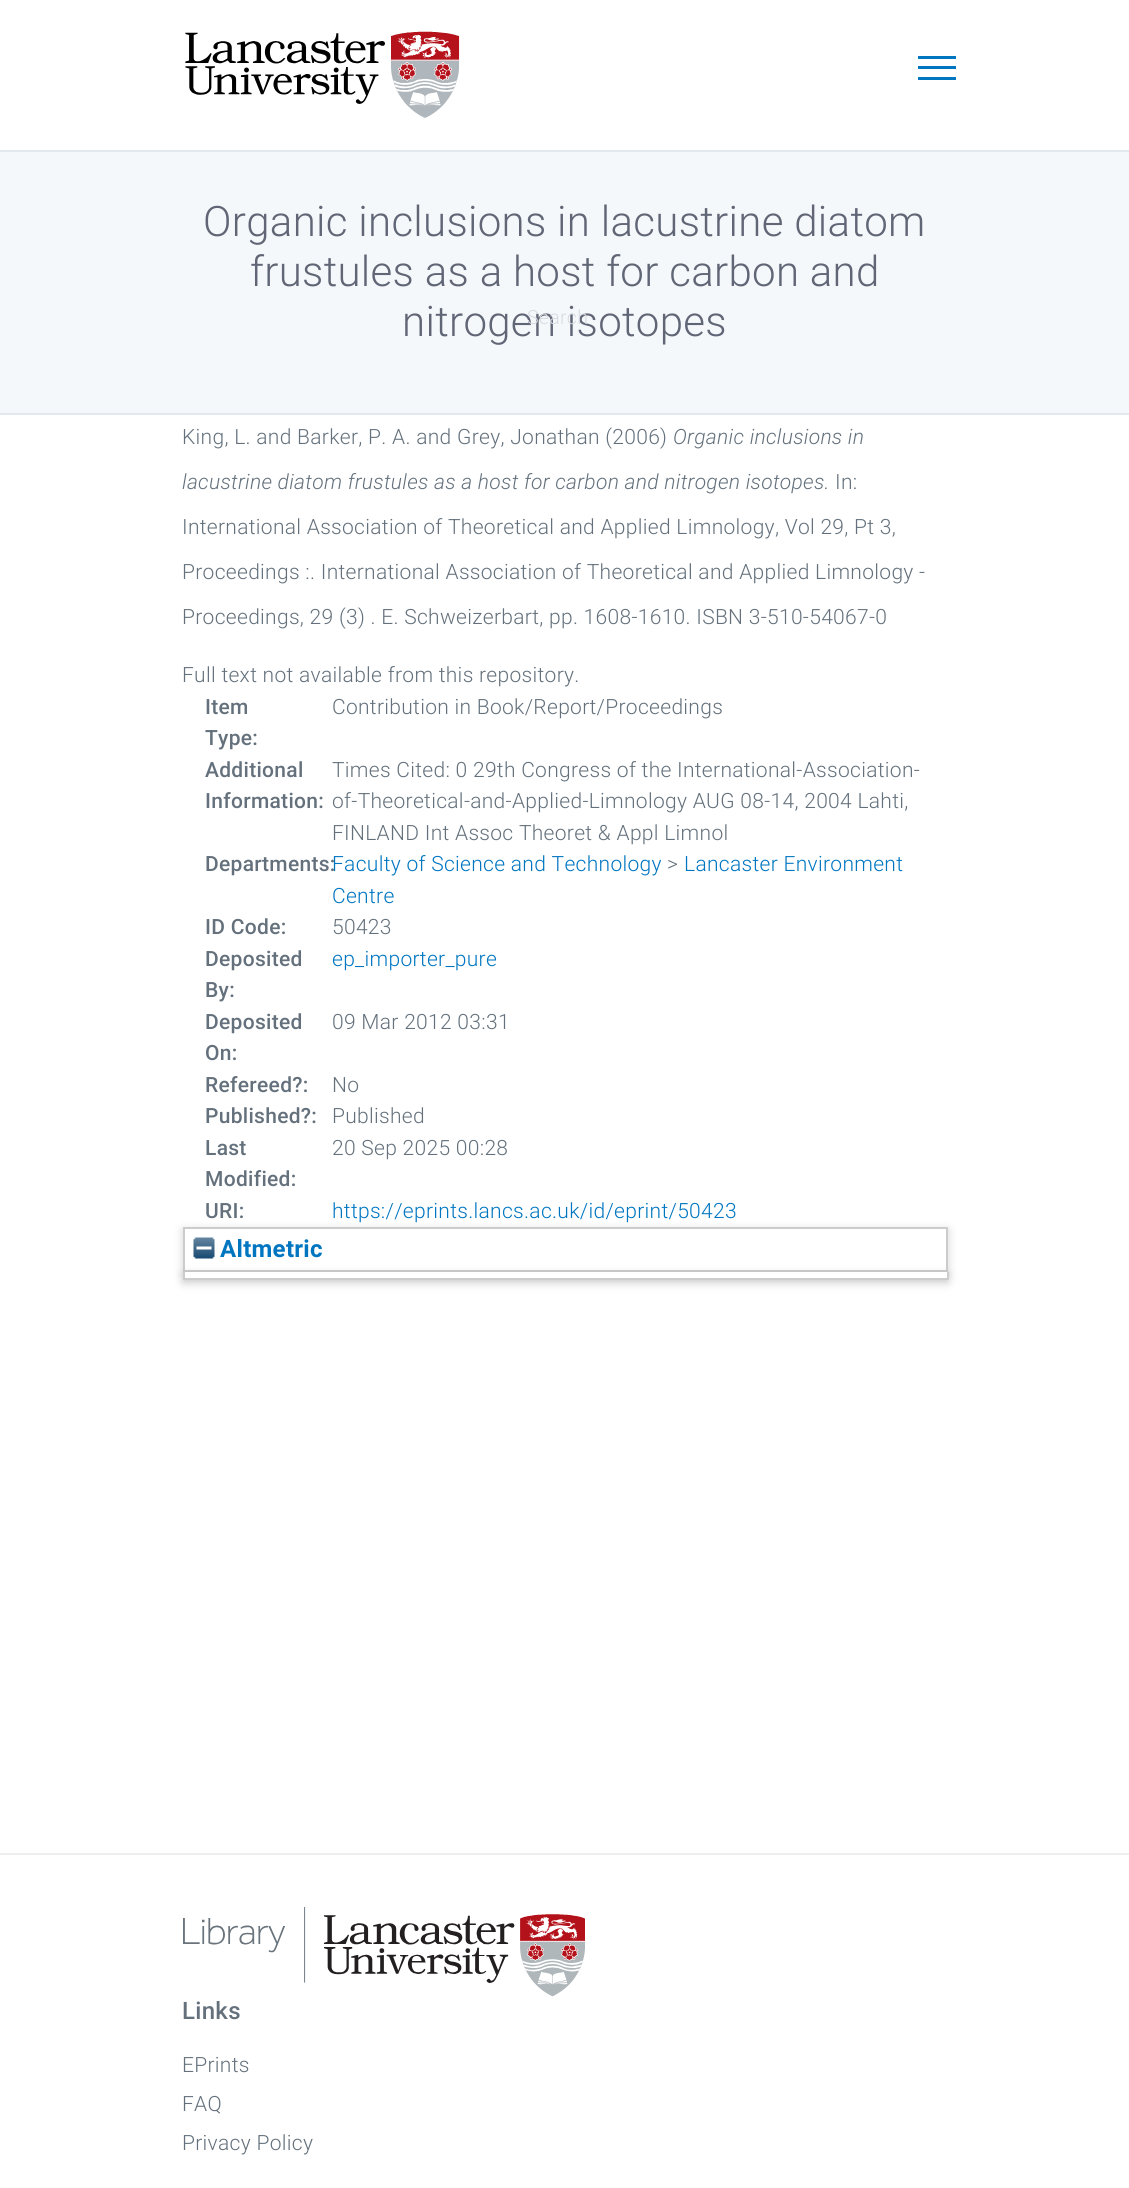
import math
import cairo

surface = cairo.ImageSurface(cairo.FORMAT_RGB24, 1129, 2188)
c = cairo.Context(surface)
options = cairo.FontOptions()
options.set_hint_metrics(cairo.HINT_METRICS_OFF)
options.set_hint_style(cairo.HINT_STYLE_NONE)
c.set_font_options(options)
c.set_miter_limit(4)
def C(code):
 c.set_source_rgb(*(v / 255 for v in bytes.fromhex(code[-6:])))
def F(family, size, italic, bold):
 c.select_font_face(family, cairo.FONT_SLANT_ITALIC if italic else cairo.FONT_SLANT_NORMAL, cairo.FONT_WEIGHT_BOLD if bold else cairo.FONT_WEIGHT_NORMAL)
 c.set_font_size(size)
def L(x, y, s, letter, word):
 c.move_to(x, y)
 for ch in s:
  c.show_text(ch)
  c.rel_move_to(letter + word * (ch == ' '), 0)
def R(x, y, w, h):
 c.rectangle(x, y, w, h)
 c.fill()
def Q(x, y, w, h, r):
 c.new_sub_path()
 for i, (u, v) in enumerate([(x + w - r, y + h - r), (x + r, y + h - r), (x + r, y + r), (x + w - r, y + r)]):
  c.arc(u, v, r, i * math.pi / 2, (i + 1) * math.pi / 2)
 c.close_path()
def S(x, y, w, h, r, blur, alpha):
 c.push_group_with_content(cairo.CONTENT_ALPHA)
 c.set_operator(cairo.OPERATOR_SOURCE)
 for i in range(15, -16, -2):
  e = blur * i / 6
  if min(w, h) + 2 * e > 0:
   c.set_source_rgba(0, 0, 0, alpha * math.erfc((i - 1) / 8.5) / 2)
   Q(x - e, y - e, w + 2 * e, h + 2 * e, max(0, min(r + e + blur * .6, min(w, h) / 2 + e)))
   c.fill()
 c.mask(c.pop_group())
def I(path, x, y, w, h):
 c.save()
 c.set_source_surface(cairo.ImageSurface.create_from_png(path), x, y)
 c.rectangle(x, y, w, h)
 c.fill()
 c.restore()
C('ffffff')
c.paint()
C('f5f8fa')
R(0,152,1129,261)
C('e1e8ee')
R(0,150,1129,2)
R(0,413,1129,2)
F('Roboto Light',42,0,0)
C('606676')
L(203,236,'Organic inclusions in lacustrine diatom',.3,0)
L(250,286,'frustules as a host for carbon and',.3,0)
L(402,336,'nitrogen isotopes',.3,0)
F('Roboto Light',21,0,0)
C('64717c')
L(182,444,'King, L. and Barker, P. A. and Grey, Jonathan (2006)',.3,0)
F('Roboto Light',21,1,0)
L(673,444,'Organic inclusions in',.3,0)
L(182,489,'lacustrine diatom frustules as a host for carbon and nitrogen isotopes.',.3,0)
F('Roboto Light',21,0,0)
L(835,489,'In:',.3,0)
L(182,534,'International Association of Theoretical and Applied Limnology, Vol 29, Pt 3,',.3,0)
L(182,579,'Proceedings :. International Association of Theoretical and Applied Limnology -',.3,0)
L(182,624,'Proceedings, 29 (3) . E. Schweizerbart, pp. 1608-1610. ISBN 3-510-54067-0',.3,0)
L(182,682,'Full text not available from this repository.',.3,0)
F('Roboto Medium',21,0,0)
L(205,714,'Item',.3,0)
L(205,745,'Type:',.3,0)
F('Roboto Light',21,0,0)
L(332,714,'Contribution in Book/Report/Proceedings',.3,0)
F('Roboto Medium',21,0,0)
L(205,777,'Additional',.3,0)
L(205,808,'Information:',.3,0)
F('Roboto Light',21,0,0)
L(332,777,'Times Cited: 0 29th Congress of the International-Association-',.3,0)
L(332,808,'of-Theoretical-and-Applied-Limnology AUG 08-14, 2004 Lahti,',.3,0)
L(332,840,'FINLAND Int Assoc Theoret & Appl Limnol',.3,0)
F('Roboto Medium',21,0,0)
L(205,871,'Departments:',.3,0)
F('Roboto Light',21,0,0)
C('0076c1')
L(332,871,'Faculty of Science and Technology',.3,0)
C('64717c')
L(667,871,'>',.3,0)
C('0076c1')
L(684,871,'Lancaster Environment',.3,0)
L(332,903,'Centre',.3,0)
F('Roboto Medium',21,0,0)
C('64717c')
L(205,934,'ID Code:',.3,0)
F('Roboto Light',21,0,0)
L(332,934,'50423',.3,0)
F('Roboto Medium',21,0,0)
L(205,966,'Deposited',.3,0)
L(205,997,'By:',.3,0)
F('Roboto Light',21,0,0)
C('0076c1')
L(332,966,'ep_importer_pure',.3,0)
F('Roboto Medium',21,0,0)
C('64717c')
L(205,1029,'Deposited',.3,0)
L(205,1060,'On:',.3,0)
F('Roboto Light',21,0,0)
L(332,1029,'09 Mar 2012 03:31',.3,0)
F('Roboto Medium',21,0,0)
L(205,1092,'Refereed?:',.3,0)
F('Roboto Light',21,0,0)
L(332,1092,'No',.3,0)
F('Roboto Medium',21,0,0)
L(205,1123,'Published?:',.3,0)
F('Roboto Light',21,0,0)
L(332,1123,'Published',.3,0)
F('Roboto Medium',21,0,0)
L(205,1155,'Last',.3,0)
L(205,1186,'Modified:',.3,0)
F('Roboto Light',21,0,0)
L(332,1155,'20 Sep 2025 00:28',.3,0)
c.save()
c.set_fill_rule(cairo.FILL_RULE_EVEN_ODD)
c.new_path()
c.move_to(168,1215)
c.line_to(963,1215)
c.line_to(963,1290)
c.line_to(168,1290)
c.close_path()
c.move_to(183,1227)
c.line_to(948,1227)
c.line_to(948,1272)
c.line_to(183,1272)
c.close_path()
c.clip()
C('646464')
S(183,1230,765,45,0,4.5,.3)
c.restore()
F('Roboto Medium',21,0,0)
L(205,1218,'URI:',.3,0)
F('Roboto Light',21,0,0)
C('0076c1')
L(332,1218,'https://eprints.lancs.ac.uk/id/eprint/50423',.3,0)
c.rectangle(184,1228,763,43)
C('cccccc')
c.stroke()
I('1.png',193,1237,22,22)
F('Roboto',24,0,1)
C('0076c1')
L(220,1257,'Altmetric',.3,0)
C('646464')
S(183,1275,765,8,0,4.5,.3)
C('ffffff')
R(183,1272,765,6)
C('cccccc')
R(947,1272,2,8)
R(183,1278,765,2)
R(183,1272,2,8)
I('2.png',185,31,275,87)
C('0076c1')
R(918,66,38,3)
R(918,56,38,3)
R(918,77,38,3)
F('Roboto Light',19.5,0,0)
C('d7dbe0')
L(527,324,'Search',.3,0)
C('eeeeee')
R(0,1853,1129,2)
I('3.png',183,1907,402,90)
F('Roboto Medium',24,0,0)
C('64717c')
L(182,2019,'Links',.3,0)
F('Roboto Light',21,0,0)
L(182,2072,'EPrints',.3,0)
L(182,2111,'FAQ',.3,0)
L(182,2150,'Privacy Policy',.3,0)
surface.write_to_png('o.png')
